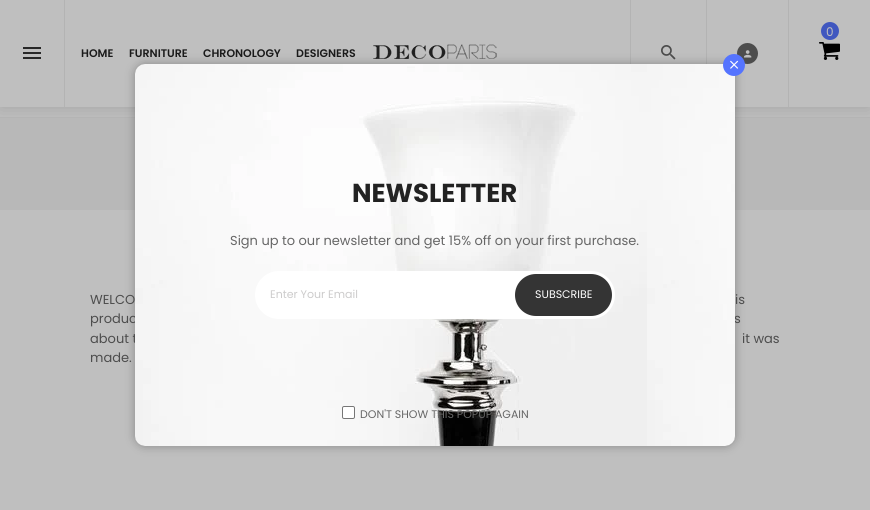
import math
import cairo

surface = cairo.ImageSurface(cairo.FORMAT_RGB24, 870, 510)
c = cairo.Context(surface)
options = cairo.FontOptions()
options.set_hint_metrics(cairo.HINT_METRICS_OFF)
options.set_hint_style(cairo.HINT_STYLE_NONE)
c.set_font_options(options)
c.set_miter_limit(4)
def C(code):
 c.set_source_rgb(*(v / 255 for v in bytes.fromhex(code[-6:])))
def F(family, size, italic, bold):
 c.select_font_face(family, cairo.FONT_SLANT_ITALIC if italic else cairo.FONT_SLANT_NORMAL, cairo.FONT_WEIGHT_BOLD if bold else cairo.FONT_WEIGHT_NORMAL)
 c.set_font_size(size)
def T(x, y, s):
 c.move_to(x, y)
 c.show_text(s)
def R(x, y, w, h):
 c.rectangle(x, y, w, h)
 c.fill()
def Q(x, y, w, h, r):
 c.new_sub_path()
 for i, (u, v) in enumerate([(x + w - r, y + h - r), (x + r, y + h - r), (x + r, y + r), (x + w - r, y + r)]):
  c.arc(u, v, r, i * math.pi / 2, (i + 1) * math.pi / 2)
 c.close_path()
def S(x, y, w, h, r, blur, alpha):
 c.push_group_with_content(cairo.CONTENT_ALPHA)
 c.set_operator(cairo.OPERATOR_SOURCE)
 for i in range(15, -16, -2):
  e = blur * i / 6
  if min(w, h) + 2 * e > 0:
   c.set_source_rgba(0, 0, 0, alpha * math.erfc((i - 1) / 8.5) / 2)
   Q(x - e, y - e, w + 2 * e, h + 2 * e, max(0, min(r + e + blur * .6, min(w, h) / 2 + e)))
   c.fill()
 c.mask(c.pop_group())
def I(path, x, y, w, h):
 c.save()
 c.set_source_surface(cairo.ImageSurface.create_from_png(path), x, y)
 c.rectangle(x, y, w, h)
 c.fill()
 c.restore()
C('bfbfbf')
c.paint()
C('b8b8b8')
R(0,117,870,93)
c.save()
c.rectangle(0,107,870,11)
c.clip()
C('000000')
S(0,0,870,107,0,10,.15)
c.restore()
C('b3b3b3')
R(630,0,1,64)
I('1.png',661,45,15,15)
R(706,0,1,64)
C('4d4d4d')
c.arc(747.5,53.5,10.5,0,2 * math.pi)
c.fill()
I('2.png',744,50,8,8)
C('b3b3b3')
R(788,0,1,107)
C('4057bf')
c.arc(830,31,9,0,2 * math.pi)
c.fill()
F('Poppins',12,0,0)
C('bfbfbf')
T(826,36,'0')
I('3.png',819,42,21,18)
C('b3b3b3')
R(64,0,1,107)
I('4.png',23,47,18,12)
F('Poppins SemiBold',11,0,0)
C('1a1a1a')
T(81,57,'HOME')
T(129,57,'FURNITURE')
T(203,57,'CHRONOLOGY')
T(296,57,'DESIGNERS')
I('5.png',373,44,124,15)
C('222222')
S(135,64,600,382,10,5,.35)
F('Poppins',13,0,0)
C('4d4d4d')
T(90,323,'produc')
T(734,323,'s')
T(90,343,'about t')
I('6.png',135,64,600,382)
C('5574ff')
c.arc(734,65,11,0,2 * math.pi)
c.fill()
I('7.png',730,60,9,9)
F('Poppins',26,0,1)
C('222222')
T(352,202,'NEWSLETTER')
F('Poppins',13,0,0)
C('666666')
T(230,245,'Sign up to our newsletter and get 15% off on your first purchase.')
C('ffffff')
Q(255,271,360,48,24)
c.fill()
F('Poppins',11,0,0)
C('cccbcb')
T(270,298,'Enter Your Email')
C('343434')
Q(515,274,97,42,21)
c.fill()
C('ffffff')
T(535,298,'SUBSCRIBE')
Q(342.5,406.5,12,12,1.5)
c.fill_preserve()
C('767676')
c.set_line_width(1)
c.stroke()
C('666666')
T(360,418,'DON\'T SHOW THIS POPUP AGAIN')
F('Poppins',13,0,0)
C('4d4d4d')
T(90,304,'WELCO')
T(735,304,'is')
T(742,343,'it was')
T(90,362,'made.')
surface.write_to_png('o.png')
